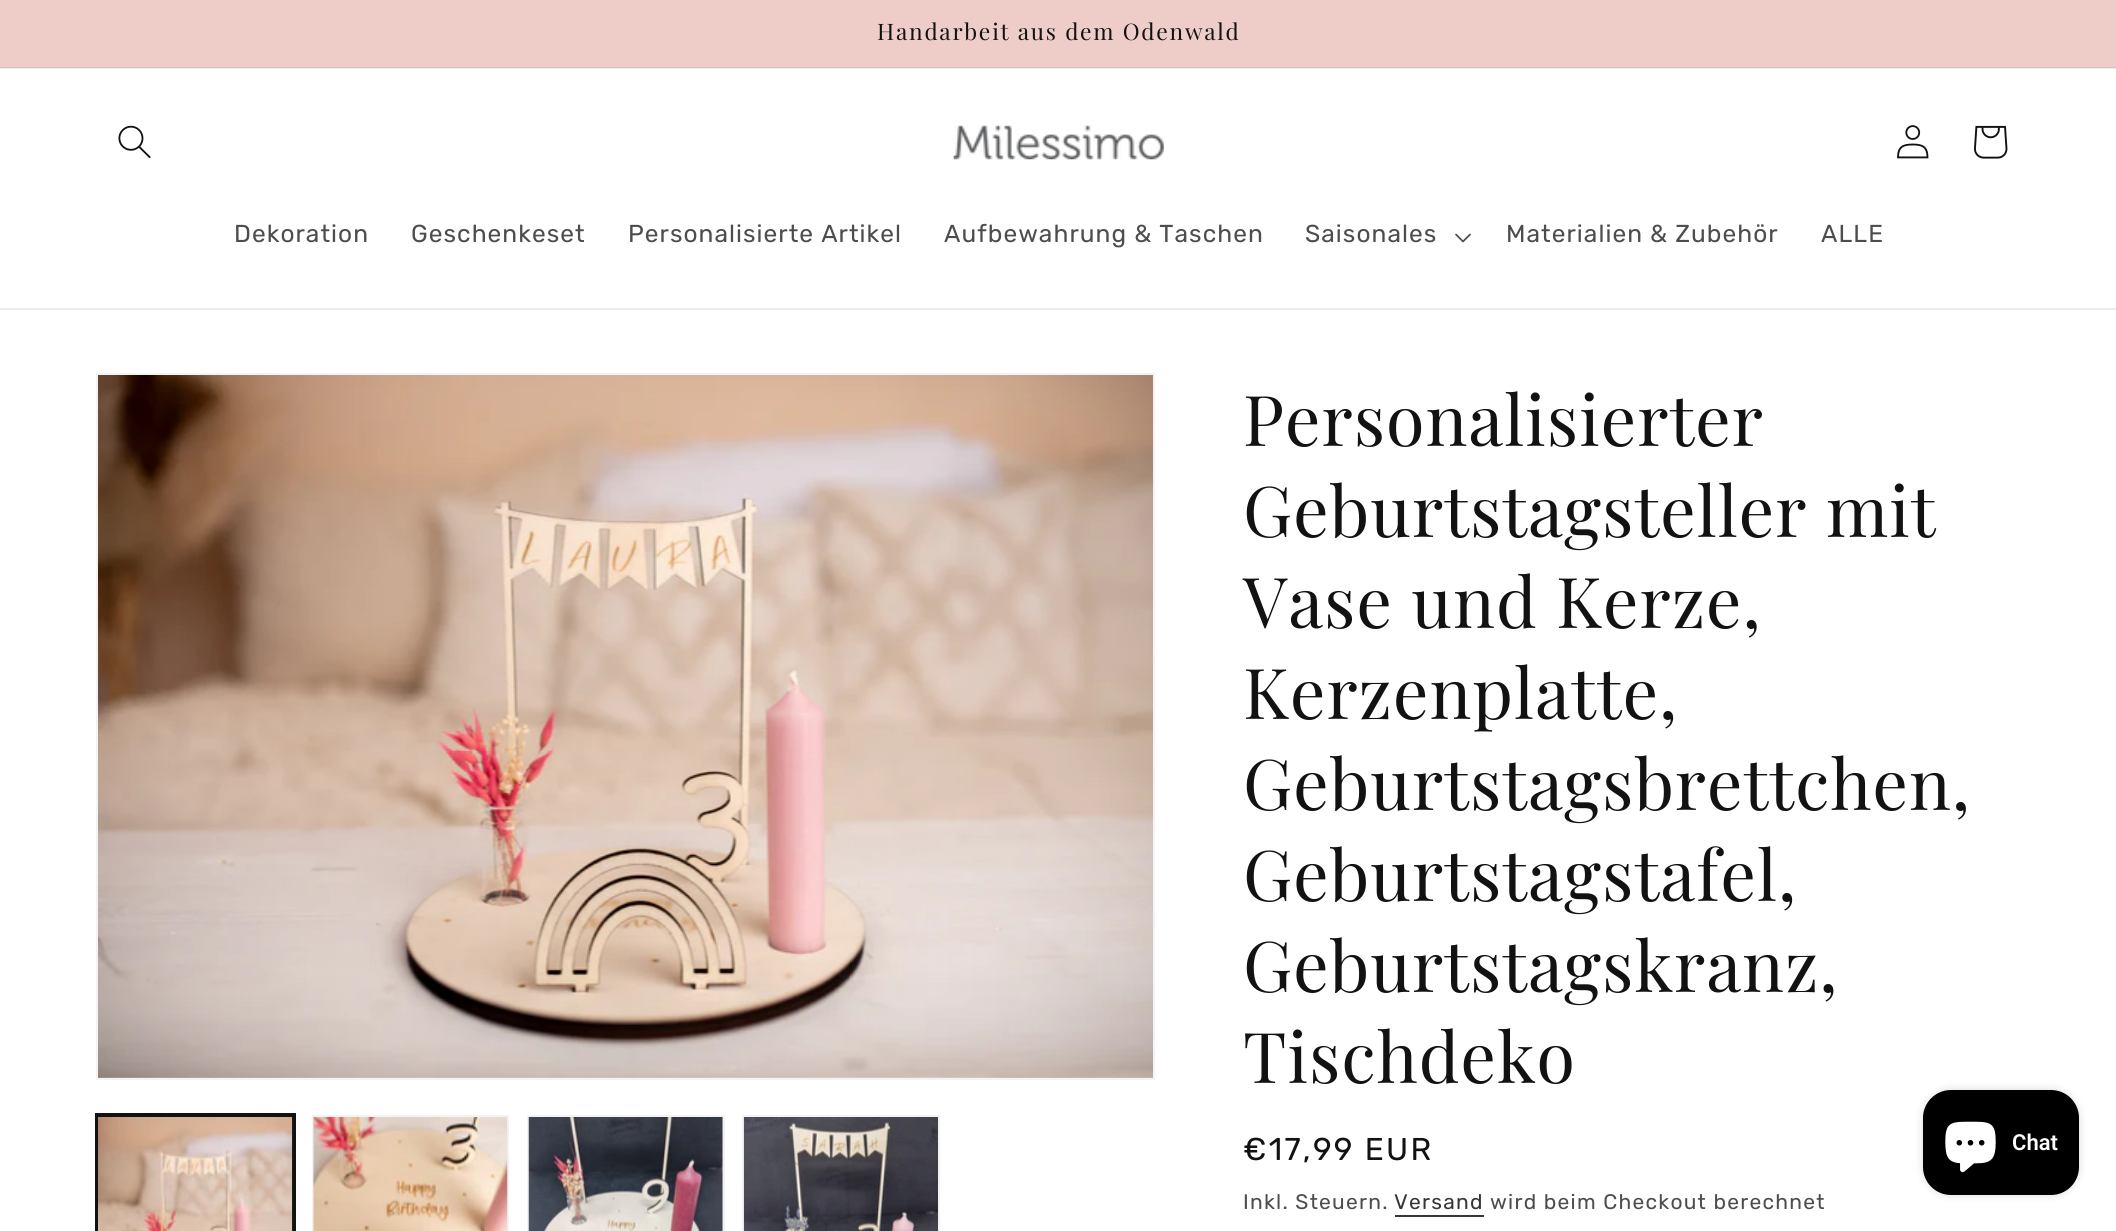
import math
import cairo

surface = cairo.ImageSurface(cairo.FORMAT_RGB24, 2116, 1231)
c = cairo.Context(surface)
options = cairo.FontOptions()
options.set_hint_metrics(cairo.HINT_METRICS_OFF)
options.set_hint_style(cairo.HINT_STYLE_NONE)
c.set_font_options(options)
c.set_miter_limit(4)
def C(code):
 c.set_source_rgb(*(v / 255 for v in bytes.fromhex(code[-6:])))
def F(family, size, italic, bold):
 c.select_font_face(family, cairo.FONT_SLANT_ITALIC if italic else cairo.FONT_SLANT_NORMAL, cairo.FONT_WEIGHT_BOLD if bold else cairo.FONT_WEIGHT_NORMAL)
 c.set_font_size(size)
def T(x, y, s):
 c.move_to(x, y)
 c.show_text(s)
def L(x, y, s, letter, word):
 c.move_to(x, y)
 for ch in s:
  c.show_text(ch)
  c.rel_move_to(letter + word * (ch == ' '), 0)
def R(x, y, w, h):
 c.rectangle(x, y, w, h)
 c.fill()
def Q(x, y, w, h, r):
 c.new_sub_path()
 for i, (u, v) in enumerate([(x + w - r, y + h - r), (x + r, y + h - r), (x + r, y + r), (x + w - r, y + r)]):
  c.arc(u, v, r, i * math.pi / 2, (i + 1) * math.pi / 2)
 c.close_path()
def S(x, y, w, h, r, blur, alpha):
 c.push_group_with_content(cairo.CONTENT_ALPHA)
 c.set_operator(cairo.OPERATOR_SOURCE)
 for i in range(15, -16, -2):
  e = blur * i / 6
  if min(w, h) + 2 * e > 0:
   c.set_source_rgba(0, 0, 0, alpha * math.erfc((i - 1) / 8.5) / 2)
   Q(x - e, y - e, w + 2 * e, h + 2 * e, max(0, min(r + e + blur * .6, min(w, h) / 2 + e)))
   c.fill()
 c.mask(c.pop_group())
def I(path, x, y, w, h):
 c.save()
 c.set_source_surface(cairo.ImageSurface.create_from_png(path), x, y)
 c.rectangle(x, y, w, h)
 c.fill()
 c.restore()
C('ffffff')
c.paint()
C('ececec')
R(0,68,2116,1)
C('eeccc7')
R(0,0,2116,67)
C('dcbdb9')
R(0,67,2116,1)
F('Playfair Display',22.75,0,0)
C('121212')
L(877,40,'Handarbeit aus dem Odenwald',1.75,0)
C('ececec')
R(0,308,2116,2)
I('1.png',118,125,33,34)
I('2.png',953,125,211,35)
I('3.png',1897,125,32,34)
I('4.png',1974,125,34,34)
F('Rubik',24.5,0,0)
C('4d4d4d')
L(234,242,'Dekoration',1.05,0)
L(411,242,'Geschenkeset',1.05,0)
L(628,242,'Personalisierte Artikel',1.05,0)
L(944,242,'Aufbewahrung & Taschen',1.05,0)
L(1305,242,'Saisonales',1.05,0)
I('5.png',1455,233,16,10)
L(1506,242,'Materialien & Zubehör',1.05,0)
L(1821,242,'ALLE',1.05,0)
c.rectangle(97,374,1057,705)
C('f3f3f3')
c.stroke()
I('6.png',98,375,1055,703)
c.rectangle(96,1114,199,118)
C('121212')
c.stroke()
c.rectangle(97,1116,196,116)
c.stroke()
I('7.png',98,1117,195,114)
c.rectangle(313,1116,195,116)
C('f3f3f3')
c.stroke()
I('8.png',313,1117,195,114)
c.rectangle(528,1116,196,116)
c.stroke()
I('9.png',528,1117,195,114)
c.rectangle(743,1116,196,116)
c.stroke()
I('10.png',743,1117,195,114)
F('Playfair Display',70,0,0)
C('121212')
L(1243,446,'Personalisierter',1.05,0)
L(1243,537,'Geburtstagsteller mit',1.05,0)
L(1243,628,'Vase und Kerze,',1.05,0)
L(1243,719,'Kerzenplatte,',1.05,0)
L(1243,810,'Geburtstagsbrettchen,',1.05,0)
L(1243,901,'Geburtstagstafel,',1.05,0)
L(1243,992,'Geburtstagskranz,',1.05,0)
L(1243,1083,'Tischdeko',1.05,0)
F('Rubik',31.5,0,0)
L(1243,1160,'€17,99 EUR',2.25,0)
F('Rubik',21,0,0)
C('4d4d4d')
L(1243,1209,'Inkl. Steuern.',1.25,0)
C('363636')
L(1394,1209,'Versand',1.25,0)
R(1395,1215,89,2)
C('4d4d4d')
L(1490,1209,'wird beim Checkout berechnet',1.25,0)
C('000000')
S(1923,1090,156,105,28,4.5,.15)
C('000000')
Q(1923,1090,156,105,28)
c.fill()
I('11.png',1945,1121,51,52)
F('Roboto SemiBold',22,0,0)
C('ffffff')
T(2012,1150,'Chat')
surface.write_to_png('o.png')
